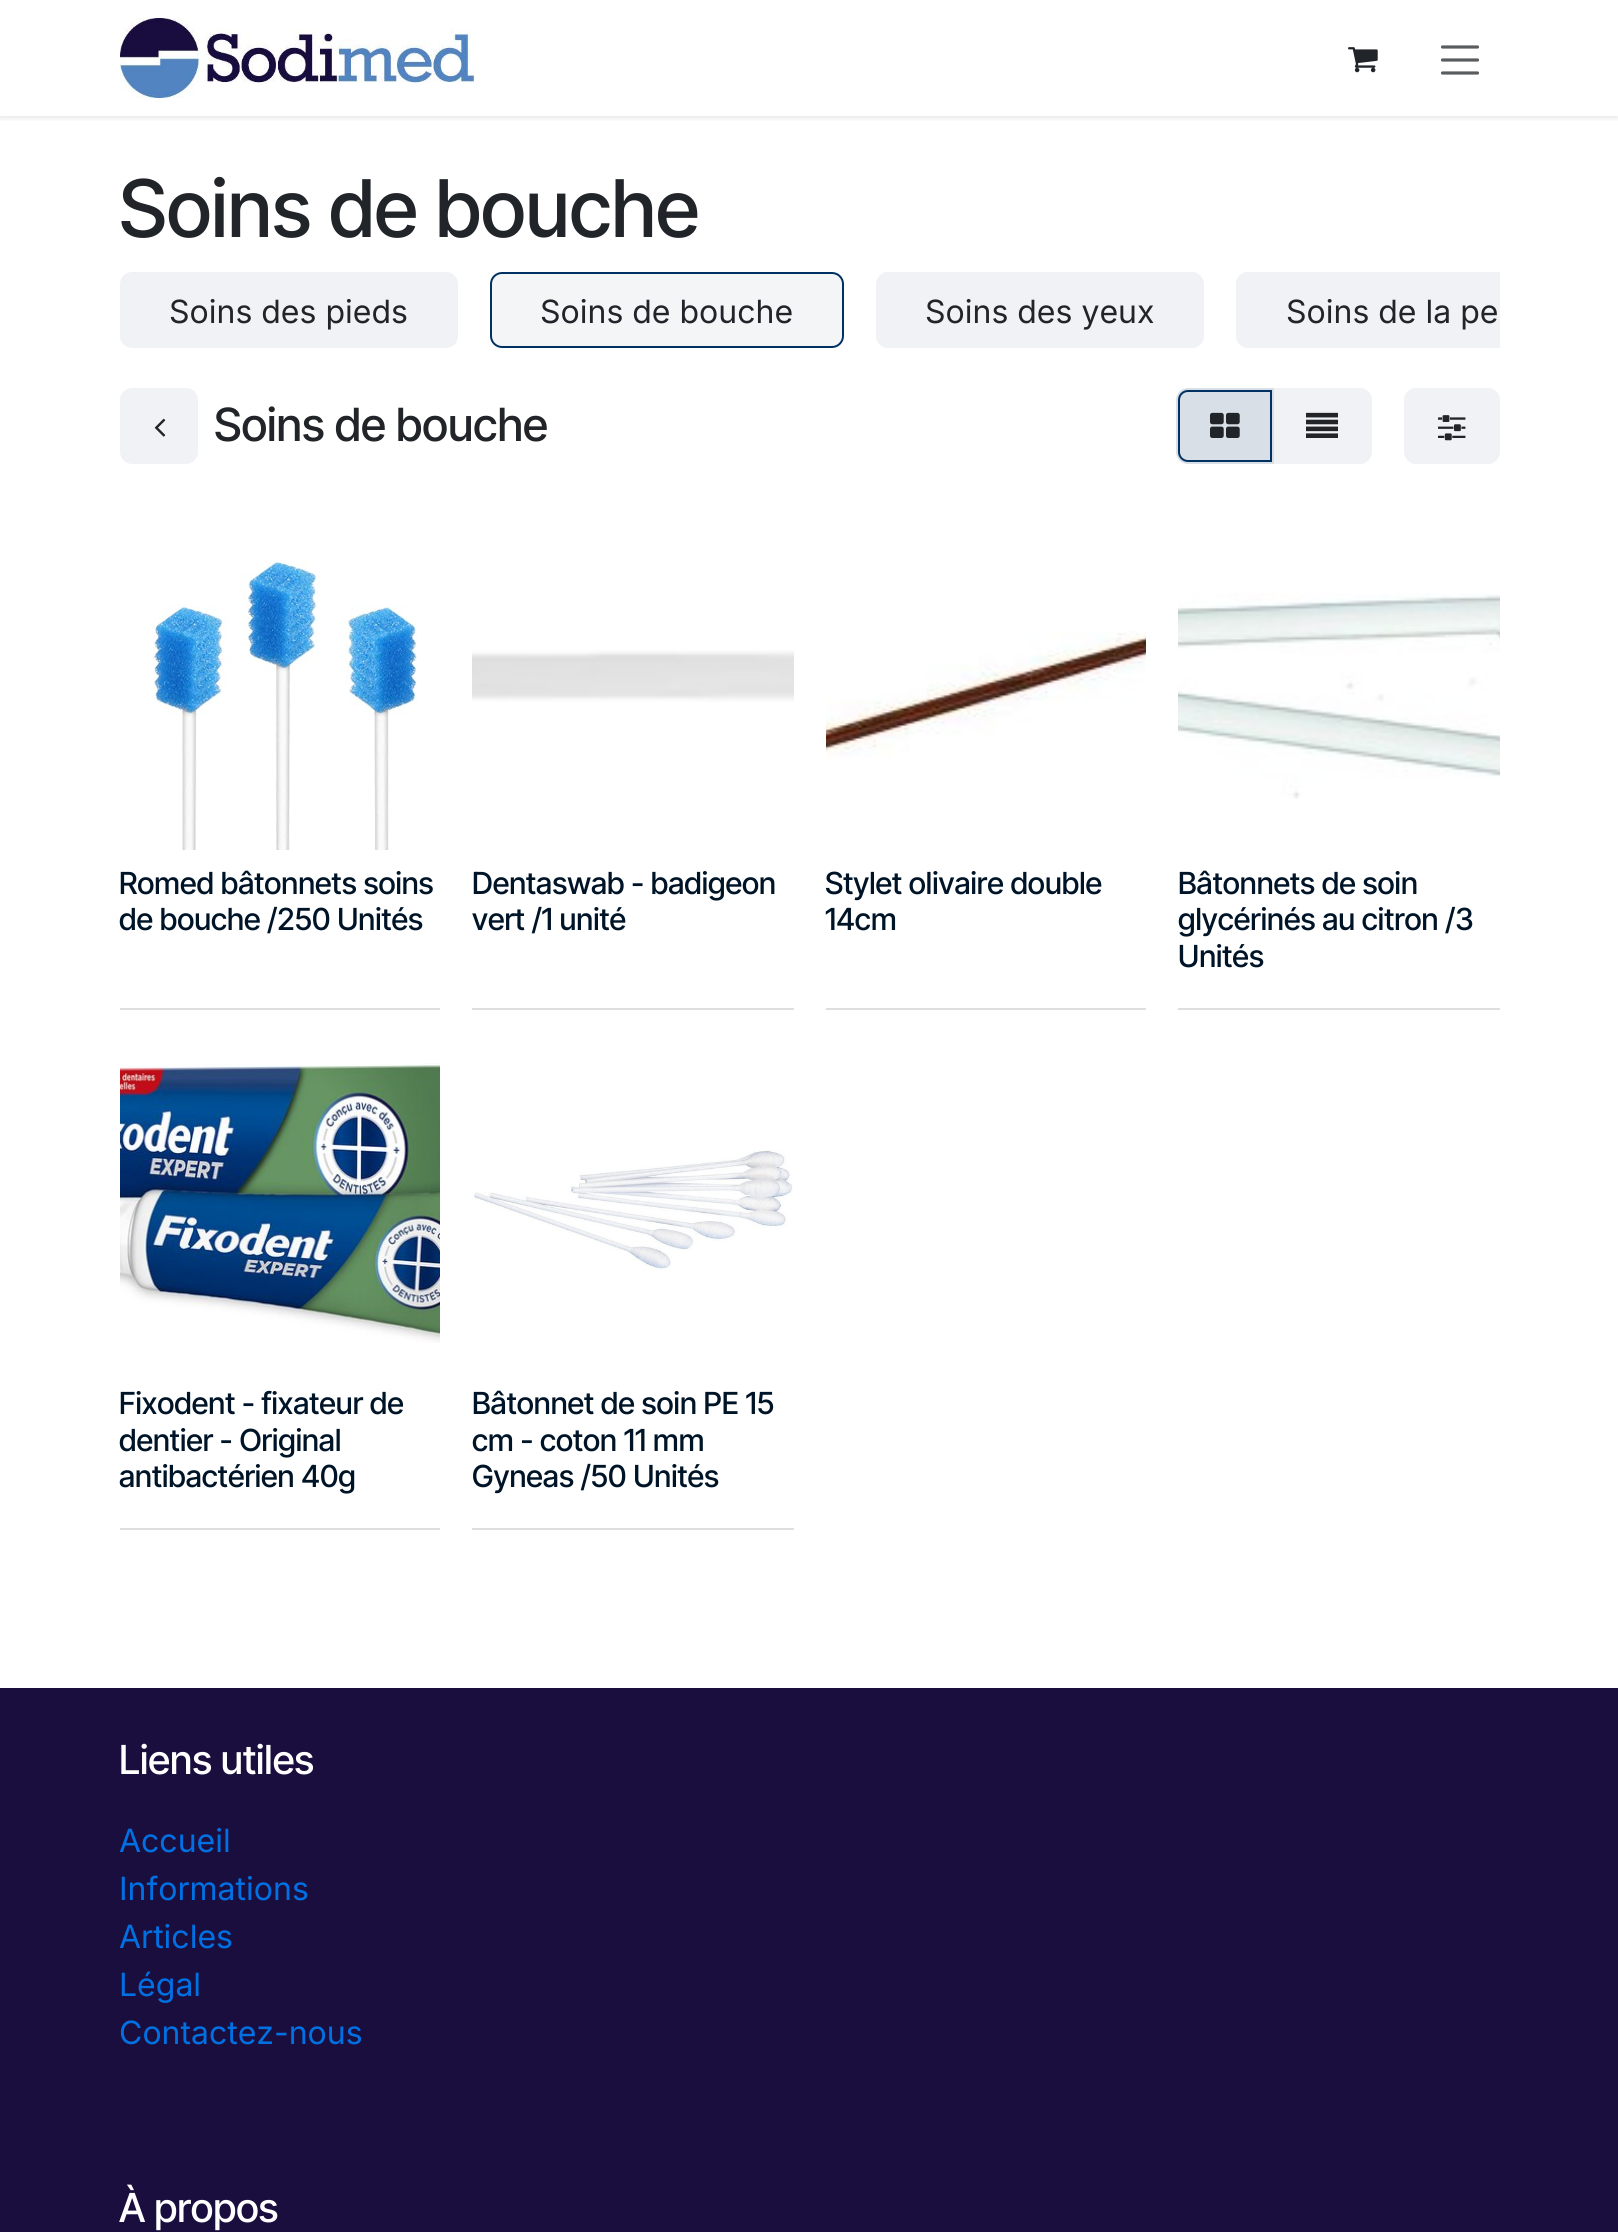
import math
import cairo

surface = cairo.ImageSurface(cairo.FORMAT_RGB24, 1618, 2232)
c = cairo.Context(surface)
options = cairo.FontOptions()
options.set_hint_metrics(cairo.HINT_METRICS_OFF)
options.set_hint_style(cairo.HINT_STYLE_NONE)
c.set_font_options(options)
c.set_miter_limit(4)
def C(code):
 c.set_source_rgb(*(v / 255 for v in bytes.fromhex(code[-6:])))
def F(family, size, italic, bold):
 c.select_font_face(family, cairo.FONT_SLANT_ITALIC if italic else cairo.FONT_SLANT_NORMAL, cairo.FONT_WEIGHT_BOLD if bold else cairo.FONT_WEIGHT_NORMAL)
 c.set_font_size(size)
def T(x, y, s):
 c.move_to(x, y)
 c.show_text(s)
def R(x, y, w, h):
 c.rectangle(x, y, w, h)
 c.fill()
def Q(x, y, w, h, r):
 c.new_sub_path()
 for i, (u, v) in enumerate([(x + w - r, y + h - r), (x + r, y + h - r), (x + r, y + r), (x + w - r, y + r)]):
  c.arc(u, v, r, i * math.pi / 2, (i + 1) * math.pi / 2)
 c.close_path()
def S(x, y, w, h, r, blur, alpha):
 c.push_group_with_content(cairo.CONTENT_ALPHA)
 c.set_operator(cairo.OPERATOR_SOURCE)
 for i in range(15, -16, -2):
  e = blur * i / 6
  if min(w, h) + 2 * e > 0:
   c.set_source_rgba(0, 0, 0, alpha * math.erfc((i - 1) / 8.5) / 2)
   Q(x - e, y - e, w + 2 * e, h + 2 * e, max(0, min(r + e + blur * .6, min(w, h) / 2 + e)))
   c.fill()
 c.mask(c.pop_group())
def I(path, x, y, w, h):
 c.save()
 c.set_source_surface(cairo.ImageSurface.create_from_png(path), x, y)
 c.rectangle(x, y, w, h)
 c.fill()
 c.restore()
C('ffffff')
c.paint()
c.save()
c.rectangle(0,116,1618,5)
c.clip()
C('000000')
S(0,2,1618,116,0,3,.1)
c.restore()
I('1.png',120,18,354,80)
I('2.png',1348,47,30,26)
c.new_path()
c.move_to(1442.5,47)
c.line_to(1477.5,47)
c.move_to(1442.5,60)
c.line_to(1477.5,60)
c.move_to(1442.5,73)
c.line_to(1477.5,73)
C('595c5f')
c.set_line_width(3.2)
c.set_line_cap(cairo.LINE_CAP_ROUND)
c.stroke()
F('Inter Tight Medium',79.5,0,0)
C('212529')
T(119,237,'Soins de bouche')
C('f0f2f5')
Q(121,273,336,74,11)
c.fill_preserve()
c.set_line_width(2)
c.set_line_cap(cairo.LINE_CAP_BUTT)
c.stroke()
F('Inter',32,0,0)
C('212529')
T(169,323,'Soins des pieds')
C('f3f5f7')
Q(491,273,352,74,11)
c.fill_preserve()
C('003163')
c.stroke()
C('212529')
T(540,323,'Soins de bouche')
C('f0f2f5')
Q(877,273,326,74,11)
c.fill_preserve()
c.stroke()
C('212529')
T(925,323,'Soins des yeux')
C('f0f2f5')
c.new_path()
c.move_to(1248,272)
c.line_to(1500,272)
c.line_to(1500,348)
c.line_to(1248,348)
c.curve_to(1241.5,348,1236,342.5,1236,336)
c.line_to(1236,284)
c.curve_to(1236,277.5,1241.5,272,1248,272)
c.close_path()
c.fill()
c.save()
c.rectangle(120,272,1380,84)
c.clip()
Q(1237,273,348,74,11)
c.stroke()
c.restore()
C('212529')
T(1286,323,'Soins de la pe')
C('f0f2f5')
Q(121,389,76,74,11)
c.fill_preserve()
c.stroke()
I('3.png',154,418,12,19)
F('Inter Tight Medium',45.75,0,0)
C('212529')
T(214,441,'Soins de bouche')
C('f0f2f5')
c.new_path()
c.move_to(1273,389)
c.line_to(1360,389)
c.curve_to(1366,389,1371,394,1371,400)
c.line_to(1371,452)
c.curve_to(1371,458,1366,463,1360,463)
c.line_to(1273,463)
c.close_path()
c.fill_preserve()
c.stroke()
C('d8dfe6')
c.new_path()
c.move_to(1188,388)
c.line_to(1274,388)
c.line_to(1274,464)
c.line_to(1188,464)
c.curve_to(1181.5,464,1176,458.5,1176,452)
c.line_to(1176,400)
c.curve_to(1176,393.5,1181.5,388,1188,388)
c.close_path()
c.fill()
c.new_path()
c.move_to(1188,391)
c.line_to(1271,391)
c.line_to(1271,461)
c.line_to(1188,461)
c.curve_to(1183,461,1179,457,1179,452)
c.line_to(1179,400)
c.curve_to(1179,395,1183,391,1188,391)
c.close_path()
C('003163')
c.stroke()
I('4.png',1210,412,30,26)
I('5.png',1306,412,32,26)
C('f0f2f5')
Q(1405,389,94,74,11)
c.fill_preserve()
c.stroke()
I('6.png',1438,415,28,26)
C('dededf')
R(120,1008,320,2)
I('7.png',153,561,264,289)
F('Inter Tight Medium',30.4,0,0)
C('001428')
T(119,894,'Romed bâtonnets soins')
T(119,930,'de bouche /250 Unités')
C('dededf')
R(472,1008,322,2)
I('8.png',472,650,322,52)
C('001428')
T(472,894,'Dentaswab - badigeon')
T(472,930,'vert /1 unité')
C('dededf')
R(826,1008,320,2)
I('9.png',826,631,320,126)
C('001428')
T(825,894,'Stylet olivaire double')
T(825,930,'14cm')
C('dededf')
R(1178,1008,322,2)
I('10.png',1178,593,322,206)
C('001428')
T(1178,894,'Bâtonnets de soin')
T(1178,930,'glycérinés au citron /3')
T(1178,967,'Unités')
C('dededf')
R(120,1528,320,2)
I('11.png',120,1063,320,280)
C('001428')
T(119,1414,'Fixodent - fixateur de')
T(119,1451,'dentier - Original')
T(119,1487,'antibactérien 40g')
C('dededf')
R(472,1528,322,2)
I('12.png',472,1150,321,121)
C('001428')
T(472,1414,'Bâtonnet de soin PE 15')
T(472,1451,'cm - coton 11 mm')
T(472,1487,'Gyneas /50 Unités')
C('1a0e3f')
R(0,1688,1618,544)
F('Inter Tight Medium',40,0,0)
C('ffffff')
T(119,1774,'Liens utiles')
F('Inter',32,0,0)
C('0070e3')
T(119,1852,'Accueil')
T(119,1900,'Informations')
T(119,1948,'Articles')
T(119,1996,'Légal')
T(119,2044,'Contactez-nous')
F('Inter Tight Medium',40,0,0)
C('ffffff')
T(119,2222,'À propos')
surface.write_to_png('o.png')
